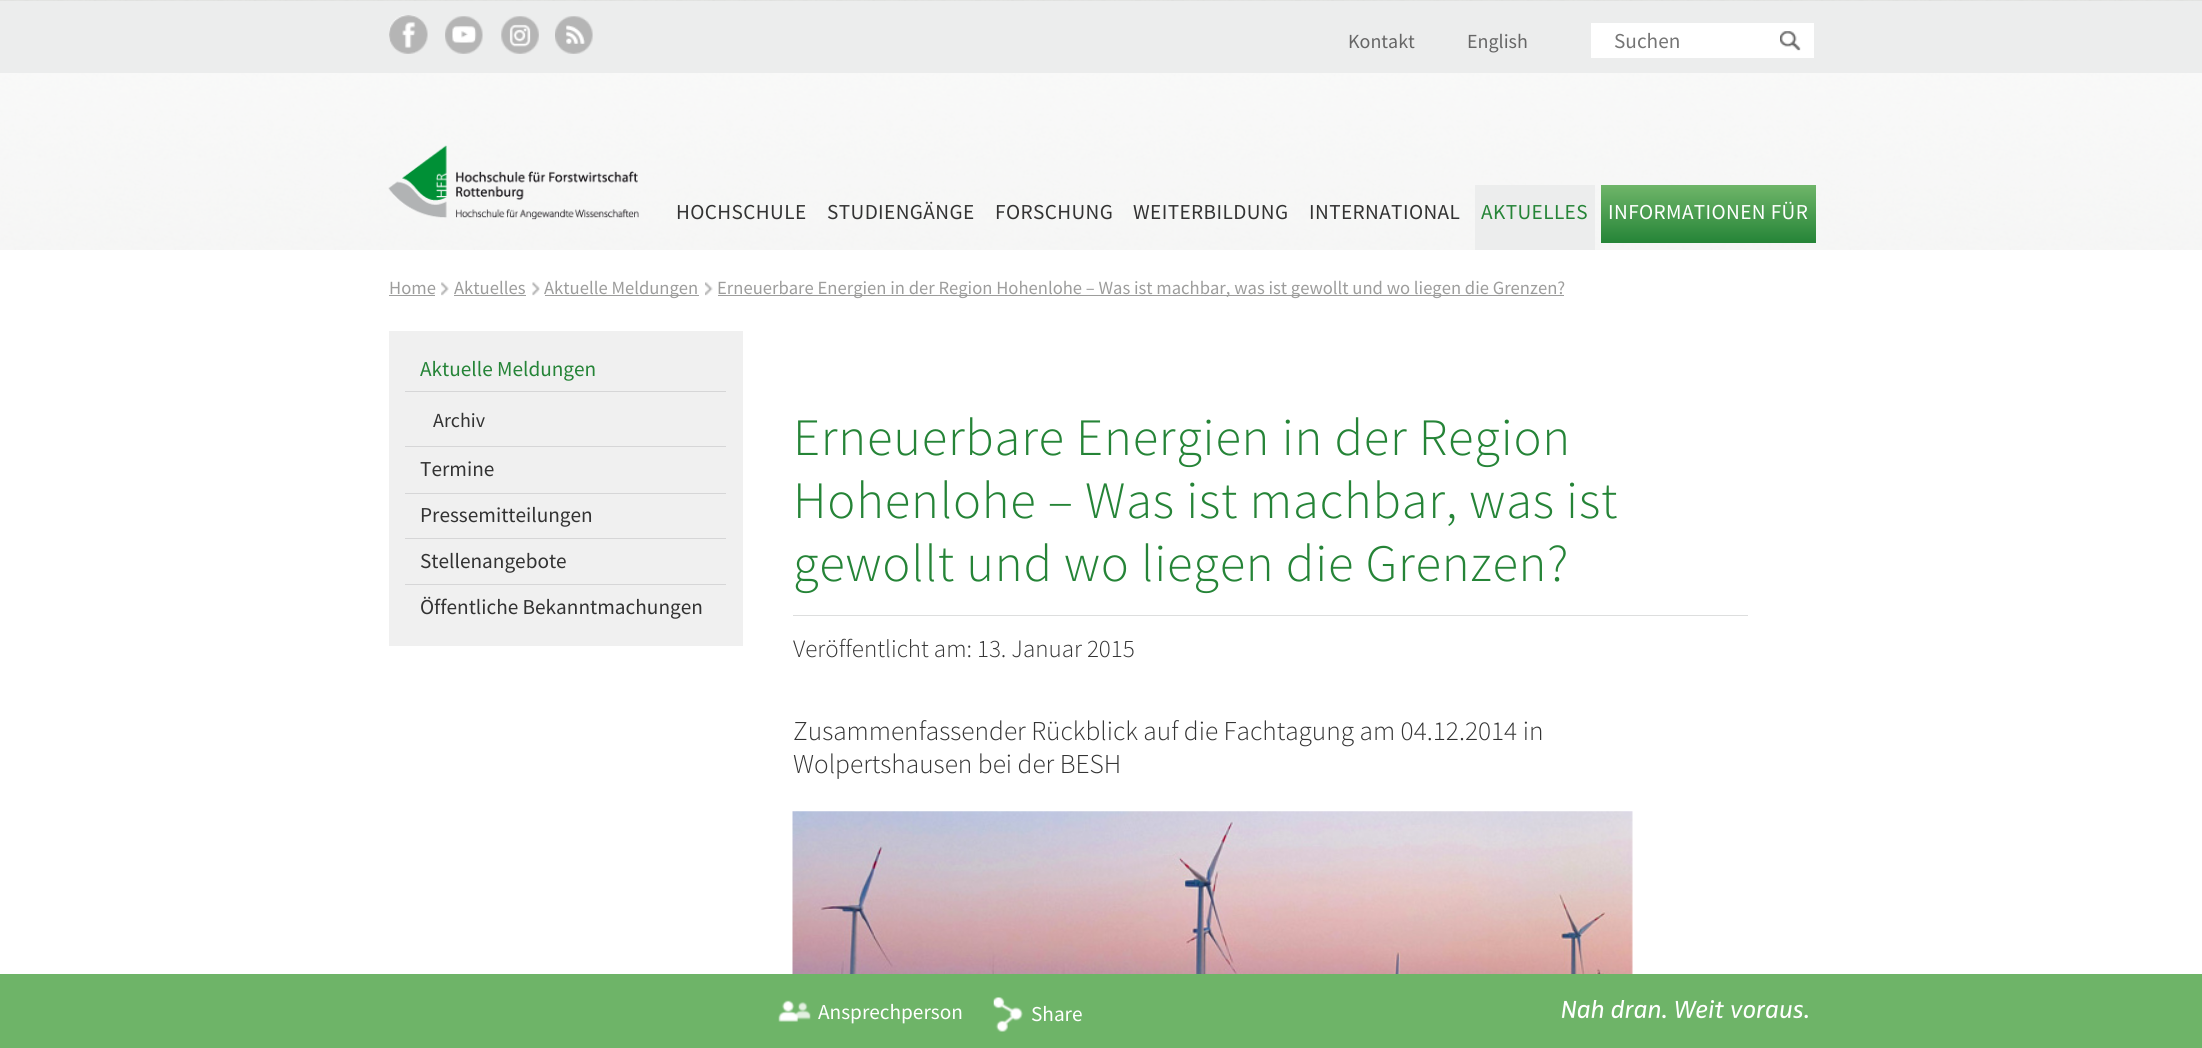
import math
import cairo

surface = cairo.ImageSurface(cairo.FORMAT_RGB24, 2202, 1048)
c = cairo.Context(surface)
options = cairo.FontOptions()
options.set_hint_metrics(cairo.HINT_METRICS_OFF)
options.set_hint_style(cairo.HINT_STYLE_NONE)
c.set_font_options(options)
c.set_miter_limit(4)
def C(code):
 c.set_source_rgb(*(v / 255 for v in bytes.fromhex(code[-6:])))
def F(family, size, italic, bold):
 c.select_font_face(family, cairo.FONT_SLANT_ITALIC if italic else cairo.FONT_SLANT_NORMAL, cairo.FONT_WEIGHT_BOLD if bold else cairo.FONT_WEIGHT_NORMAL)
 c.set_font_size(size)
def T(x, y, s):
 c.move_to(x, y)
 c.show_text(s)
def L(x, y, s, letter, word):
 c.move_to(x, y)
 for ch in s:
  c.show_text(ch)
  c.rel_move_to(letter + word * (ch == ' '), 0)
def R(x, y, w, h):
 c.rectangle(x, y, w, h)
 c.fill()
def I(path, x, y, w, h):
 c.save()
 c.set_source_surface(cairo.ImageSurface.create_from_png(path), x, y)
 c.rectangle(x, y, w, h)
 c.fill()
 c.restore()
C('ffffff')
c.paint()
I('1.png',0,0,2202,250)
I('2.png',0,73,2202,177)
C('eceded')
R(0,1,2202,72)
I('3.png',389,15,39,39)
I('4.png',445,16,38,38)
I('5.png',501,16,38,38)
I('6.png',555,16,38,38)
F('Source Sans Pro',20,0,0)
C('666666')
T(1348,48,'Kontakt')
T(1467,48,'English')
C('ffffff')
R(1591,23,223,35)
F('Source Sans Pro',21.25,0,0)
C('757575')
T(1614,48,'Suchen')
I('7.png',1780,31,21,20)
I('8.png',388,145,251,75)
C('333333')
L(676,219,'HOCHSCHULE',.4,0)
L(827,219,'STUDIENGÄNGE',.4,0)
L(995,219,'FORSCHUNG',.4,0)
L(1133,219,'WEITERBILDUNG',.4,0)
L(1309,219,'INTERNATIONAL',.4,0)
C('eceded')
R(1475,185,120,65)
C('258437')
L(1481,219,'AKTUELLES',.4,0)
gradient = cairo.LinearGradient(1709,185,1709,243)
gradient.add_color_stop_rgba(0,0.435,0.71,0.412,1)
gradient.add_color_stop_rgba(1,0.145,0.518,0.216,1)
c.set_source(gradient)
R(1601,185,215,58)
C('ffffff')
L(1608,219,'INFORMATIONEN FÜR',.4,0)
F('Source Sans Pro',18.6,0,0)
C('9d9d9c')
T(389,294,'Home')
R(389,295,46,1)
I('9.png',441,282,8,14)
T(454,294,'Aktuelles')
R(454,295,72,1)
I('10.png',532,282,8,14)
R(545,295,154,1)
T(544,294,'Aktuelle Meldungen')
I('11.png',705,282,8,14)
R(718,295,846,1)
T(717,294,'Erneuerbare Energien in der Region Hohenlohe – Was ist machbar, was ist gewollt und wo liegen die Grenzen?')
C('f0f0f0')
R(389,331,354,315)
C('d6d6d7')
R(405,446,321,1)
F('Source Sans Pro',21.25,0,0)
C('258437')
T(420,376,'Aktuelle Meldungen')
C('d6d6d7')
R(405,391,321,1)
F('Source Sans Pro',20,0,0)
C('333333')
T(433,427,'Archiv')
C('d6d6d7')
R(405,493,321,1)
F('Source Sans Pro',21.25,0,0)
C('333333')
T(420,476,'Termine')
C('d6d6d7')
R(405,538,321,1)
C('333333')
T(420,522,'Pressemitteilungen')
C('d6d6d7')
R(405,584,321,1)
C('333333')
T(420,568,'Stellenangebote')
T(420,614,'Öffentliche Bekanntmachungen')
C('dddede')
R(793,615,955,1)
F('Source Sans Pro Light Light',52.5,0,0)
C('258437')
L(793,455,'Erneuerbare Energien in der Region',.8,0)
L(793,518,'Hohenlohe – Was ist machbar, was ist',.8,0)
L(793,581,'gewollt und wo liegen die Grenzen?',.8,0)
F('Source Sans Pro Light Light',25,0,0)
C('333333')
T(793,657,'Veröffentlicht am: 13. Januar 2015')
F('Source Sans Pro Light Light',27.3,0,0)
T(793,740,'Zusammenfassender Rückblick auf die Fachtagung am 04.12.2014 in')
T(793,773,'Wolpertshausen bei der BESH')
I('12.png',792,811,841,163)
C('6eb468')
R(0,974,2202,74)
I('13.png',1561,1000,247,19)
I('14.png',778,1000,33,22)
F('Source Sans Pro',21.25,0,0)
C('ffffff')
T(818,1019,'Ansprechperson')
I('15.png',993,997,30,35)
T(1031,1021,'Share')
surface.write_to_png('o.png')
